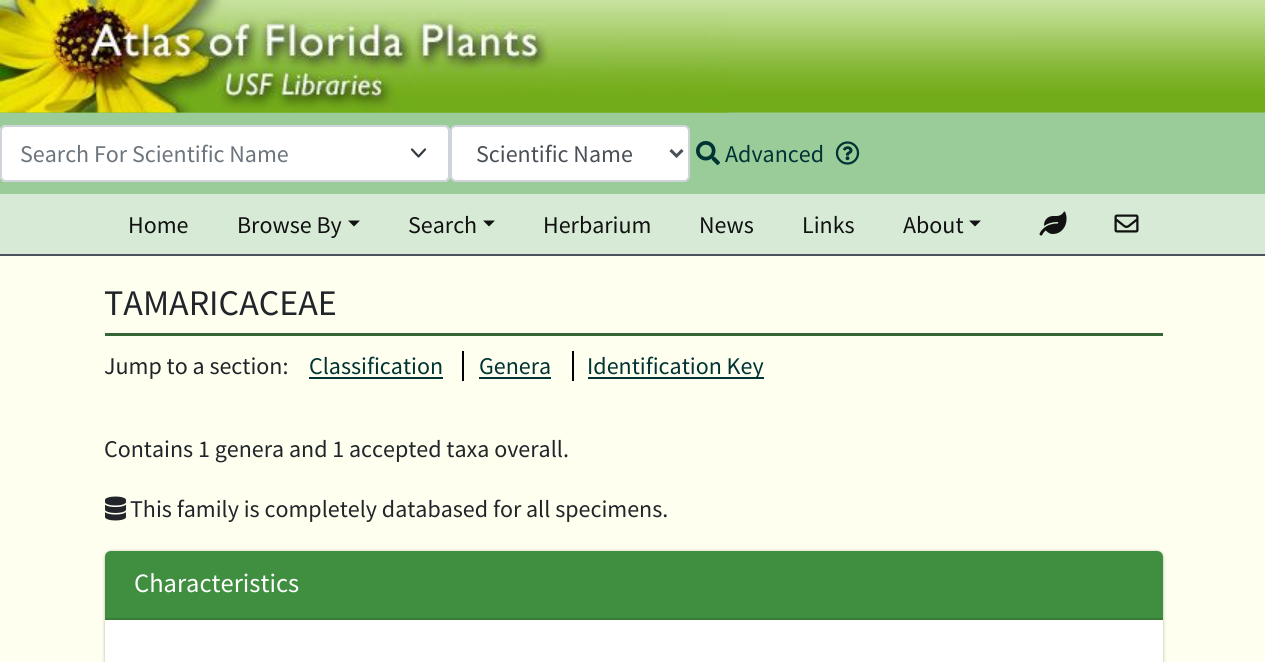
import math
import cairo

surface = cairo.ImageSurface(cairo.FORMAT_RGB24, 1265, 662)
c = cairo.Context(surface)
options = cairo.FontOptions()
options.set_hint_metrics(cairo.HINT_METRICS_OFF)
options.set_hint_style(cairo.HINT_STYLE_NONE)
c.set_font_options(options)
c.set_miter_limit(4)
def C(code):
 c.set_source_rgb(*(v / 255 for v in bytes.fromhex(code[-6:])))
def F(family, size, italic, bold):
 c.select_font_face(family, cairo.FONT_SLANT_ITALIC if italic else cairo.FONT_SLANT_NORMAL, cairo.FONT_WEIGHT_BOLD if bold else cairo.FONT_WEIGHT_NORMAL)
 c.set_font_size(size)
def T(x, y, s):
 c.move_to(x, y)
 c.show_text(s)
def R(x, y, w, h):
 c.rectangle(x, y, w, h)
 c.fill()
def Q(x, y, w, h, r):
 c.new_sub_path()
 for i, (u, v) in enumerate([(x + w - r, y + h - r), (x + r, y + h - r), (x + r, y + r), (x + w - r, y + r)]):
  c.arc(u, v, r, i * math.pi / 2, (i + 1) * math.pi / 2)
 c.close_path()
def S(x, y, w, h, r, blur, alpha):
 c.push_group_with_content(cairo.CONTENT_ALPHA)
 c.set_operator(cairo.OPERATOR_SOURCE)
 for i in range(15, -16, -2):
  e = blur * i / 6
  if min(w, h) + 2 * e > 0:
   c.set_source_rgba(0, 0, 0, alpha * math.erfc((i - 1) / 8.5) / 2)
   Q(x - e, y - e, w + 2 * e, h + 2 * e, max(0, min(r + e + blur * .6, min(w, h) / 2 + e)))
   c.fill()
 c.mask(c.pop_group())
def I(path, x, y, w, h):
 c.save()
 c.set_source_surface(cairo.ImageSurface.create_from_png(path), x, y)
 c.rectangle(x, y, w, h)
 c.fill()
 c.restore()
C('fffff0')
c.paint()
C('99cc99')
R(0,112,1265,82)
I('1.png',0,0,1265,113)
I('2.png',0,0,729,113)
C('ffffff')
Q(0,125,450,57,6)
c.fill()
c.new_path()
c.move_to(412,149.5)
c.line_to(418.5,156.5)
c.line_to(425,149.5)
C('343a40')
c.set_line_width(2.2)
c.set_line_cap(cairo.LINE_CAP_ROUND)
c.set_line_join(cairo.LINE_JOIN_ROUND)
c.stroke()
Q(1,126,448,55,5)
C('ced4da')
c.set_line_width(2)
c.set_line_cap(cairo.LINE_CAP_BUTT)
c.set_line_join(cairo.LINE_JOIN_MITER)
c.stroke()
F('Source Sans Pro',24,0,0)
C('6c757d')
T(20,162,'Search For Scientific Name')
C('ffffff')
Q(451,126,238,55,5)
c.fill_preserve()
C('ced4da')
c.stroke()
c.new_path()
c.move_to(670.5,150)
c.line_to(676.5,156)
c.line_to(682.5,150)
C('495057')
c.set_line_width(3)
c.stroke()
T(476,162,'Scientific Name')
I('3.png',696,141,24,24)
C('003333')
T(725,162,'Advanced')
I('4.png',835,141,25,24)
C('d6ead6')
R(0,194,1265,60)
C('4b545c')
R(0,254,1265,2)
C('111111')
T(128,233,'Home')
T(237,233,'Browse By')
c.new_path()
c.move_to(348,220.5)
c.line_to(360,220.5)
c.line_to(354,226.5)
c.close_path()
c.fill()
T(408,233,'Search')
c.new_path()
c.move_to(483,220.5)
c.line_to(495,220.5)
c.line_to(489,226.5)
c.close_path()
c.fill()
T(543,233,'Herbarium')
T(699,233,'News')
T(802,233,'Links')
T(903,233,'About')
c.new_path()
c.move_to(969,220.5)
c.line_to(981,220.5)
c.line_to(975,226.5)
c.close_path()
c.fill()
I('5.png',1039,211,28,25)
I('6.png',1114,214,25,19)
C('336633')
R(105,333,1058,3)
F('Source Sans Pro',36,0,0)
C('212529')
T(104,315,'TAMARICACEAE')
F('Source Sans Pro',24,0,0)
T(104,374,'Jump to a section:')
C('003333')
T(309,374,'Classification')
R(309,377,134,2)
T(479,374,'Genera')
C('000000')
R(462,351,2,30)
C('003333')
R(479,377,72,2)
R(588,377,176,2)
T(587,374,'Identification Key')
C('000000')
R(572,351,2,30)
C('212529')
T(104,457,'Contains 1 genera and 1 accepted taxa overall.')
I('7.png',105,496,21,25)
T(130,517,'This family is completely databased for all specimens.')
C('000000')
S(105,552,1058,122,6,2,.2)
S(105,551,1058,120,6,1,.12)
C('ffffff')
Q(105,551,1058,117,6)
c.fill()
C('408e40')
c.new_path()
c.move_to(111,551)
c.line_to(1157,551)
c.curve_to(1160.5,551,1163,553.5,1163,557)
c.line_to(1163,620)
c.line_to(105,620)
c.line_to(105,557)
c.curve_to(105,553.5,107.5,551,111,551)
c.close_path()
c.fill()
C('387c38')
R(105,618,1058,2)
F('Source Sans Pro',26.5,0,0)
C('ffffff')
T(134,592,'Characteristics')
surface.write_to_png('o.png')
